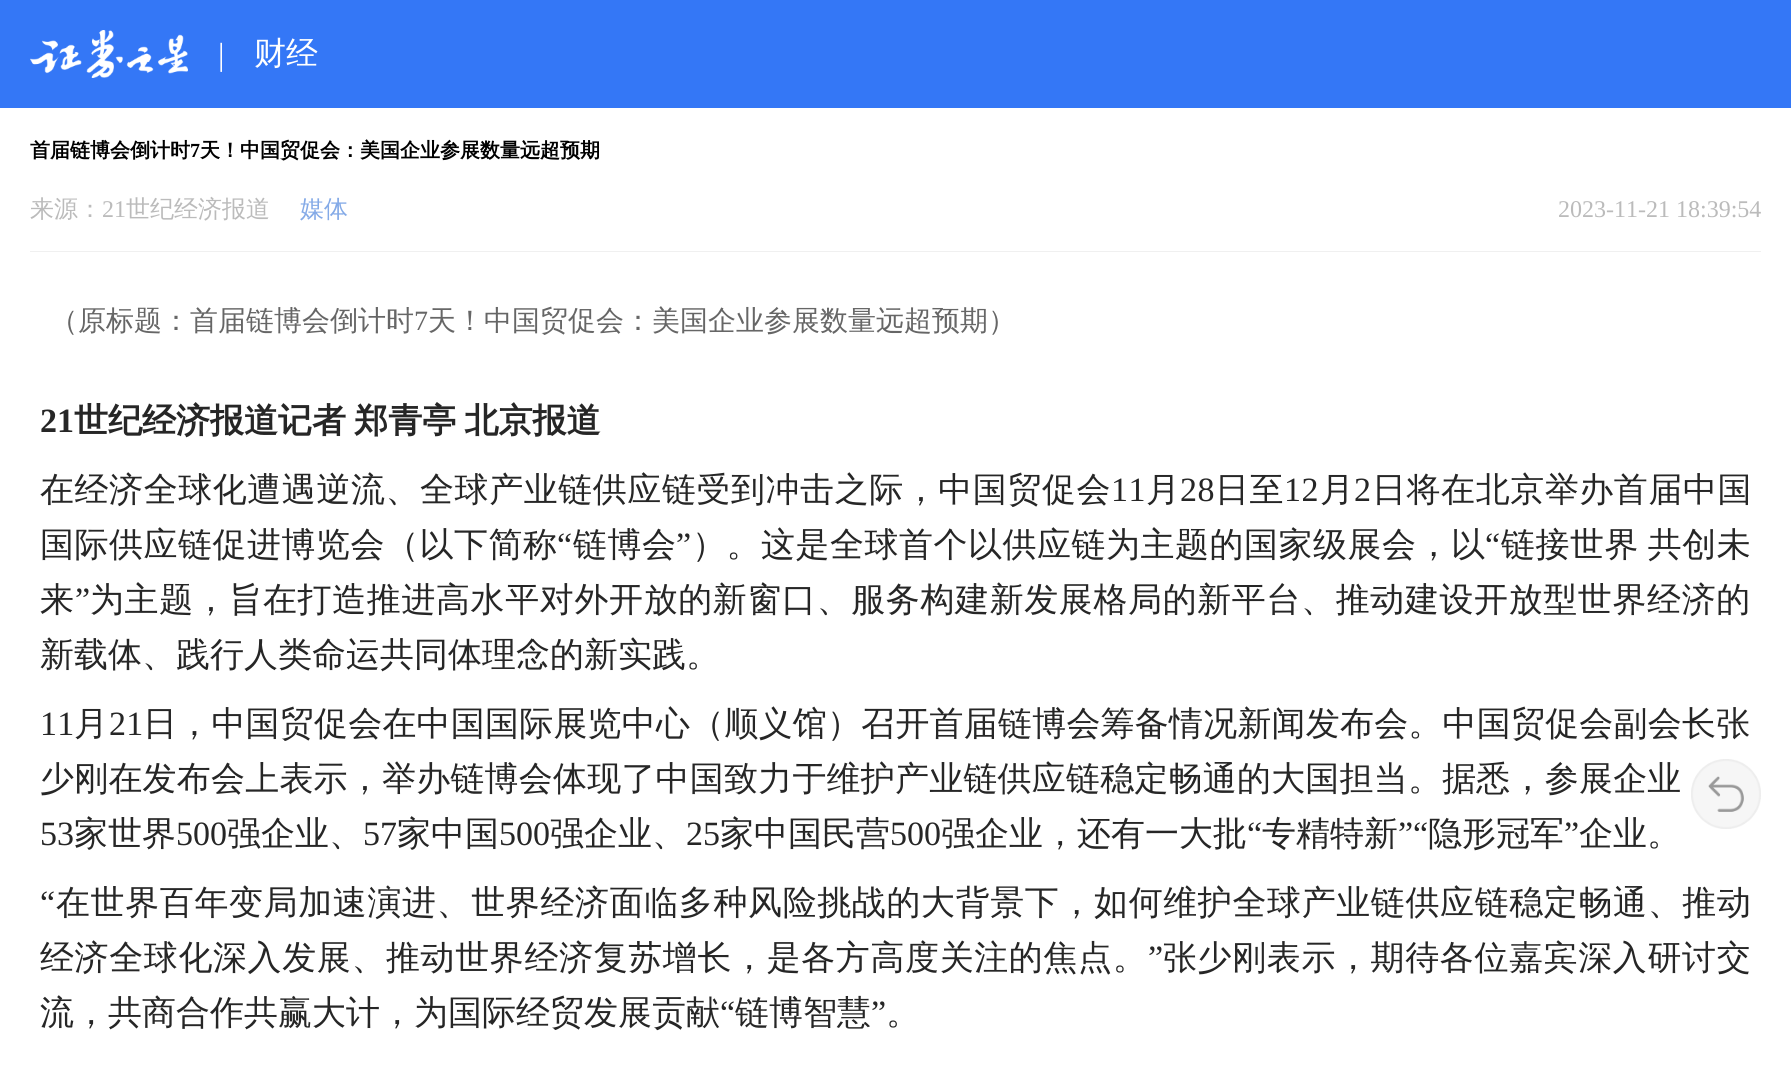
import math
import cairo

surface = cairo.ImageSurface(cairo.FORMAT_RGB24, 1791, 1079)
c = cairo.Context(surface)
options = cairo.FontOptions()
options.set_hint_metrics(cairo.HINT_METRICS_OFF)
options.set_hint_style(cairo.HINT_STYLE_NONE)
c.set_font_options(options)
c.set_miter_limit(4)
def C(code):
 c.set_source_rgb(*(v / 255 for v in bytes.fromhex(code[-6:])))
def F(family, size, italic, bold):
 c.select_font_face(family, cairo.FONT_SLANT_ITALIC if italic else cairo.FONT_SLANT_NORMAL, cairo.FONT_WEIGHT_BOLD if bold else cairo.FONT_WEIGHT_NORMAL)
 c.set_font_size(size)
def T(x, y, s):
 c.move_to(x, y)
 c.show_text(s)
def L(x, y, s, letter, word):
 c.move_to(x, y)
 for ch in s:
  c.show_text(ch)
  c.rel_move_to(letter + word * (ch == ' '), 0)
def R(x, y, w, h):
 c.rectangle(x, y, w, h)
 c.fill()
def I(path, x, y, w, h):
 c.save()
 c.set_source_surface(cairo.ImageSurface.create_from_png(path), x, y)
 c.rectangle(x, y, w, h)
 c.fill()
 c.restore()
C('ffffff')
c.paint()
C('3477f6')
R(0,0,1791,108)
I('1.png',30,30,158,48)
F('Liberation Serif',32,0,0)
C('ffffff')
T(218,65,'|')
F('WenQuanYi Zen Hei Medium',32,0,0)
T(254,64,'财经')
F('WenQuanYi Zen Hei',20,0,1)
C('000000')
T(30,157,'首届链博会倒计时')
F('Liberation Serif',20,0,1)
T(190,157,'7')
F('WenQuanYi Zen Hei',20,0,1)
T(200,157,'天！中国贸促会：美国企业参展数量远超预期')
C('f0f0f0')
R(30,251,1731,1)
F('WenQuanYi Zen Hei Medium',24,0,0)
C('bbbbbb')
T(30,217,'来源：')
F('Liberation Serif',24,0,0)
T(102,217,'21')
F('WenQuanYi Zen Hei Medium',24,0,0)
T(126,217,'世纪经济报道')
C('84aae7')
T(300,217,'媒体')
F('Liberation Serif',24,0,0)
C('bbbbbb')
T(1558,217,'2023-11-21 18:39:54')
F('WenQuanYi Zen Hei Medium',28,0,0)
C('666666')
T(50,330,'（原标题：首届链博会倒计时')
F('Liberation Serif',28,0,0)
T(414,330,'7')
F('WenQuanYi Zen Hei Medium',28,0,0)
T(428,330,'天！中国贸促会：美国企业参展数量远超预期）')
F('Liberation Serif',34,0,1)
C('262626')
T(40,432,'21')
F('WenQuanYi Zen Hei',34,0,1)
L(74,432,'世纪经济报道记者 郑青亭 北京报道',0,-2)
F('WenQuanYi Zen Hei Medium',34,0,0)
L(40,501,'在经济全球化遭遇逆流、全球产业链供应链受到冲击之际，中国贸促会',.55,0)
F('Liberation Serif',34,0,0)
L(1111,501,'11',.55,0)
F('WenQuanYi Zen Hei Medium',34,0,0)
L(1146,501,'月',.55,0)
F('Liberation Serif',34,0,0)
L(1180,501,'28',.55,0)
F('WenQuanYi Zen Hei Medium',34,0,0)
L(1215,501,'日至',.55,0)
F('Liberation Serif',34,0,0)
L(1284,501,'12',.55,0)
F('WenQuanYi Zen Hei Medium',34,0,0)
L(1320,501,'月',.55,0)
F('Liberation Serif',34,0,0)
L(1354,501,'2',.55,0)
F('WenQuanYi Zen Hei Medium',34,0,0)
L(1372,501,'日将在北京举办首届中国',.55,0)
L(40,556,'国际供应链促进博览会（以下简称',.5,0)
F('Liberation Serif',34,0,0)
L(557,556,'“',.5,0)
F('WenQuanYi Zen Hei Medium',34,0,0)
L(573,556,'链博会',.5,0)
F('Liberation Serif',34,0,0)
L(676,556,'”',.5,0)
F('WenQuanYi Zen Hei Medium',34,0,0)
L(692,556,'）。这是全球首个以供应链为主题的国家级展会，以',.5,0)
F('Liberation Serif',34,0,0)
L(1485,556,'“',.5,0)
F('WenQuanYi Zen Hei Medium',34,0,0)
L(1501,556,'链接世界 共创未',.5,-2)
L(40,611,'来',.6,0)
F('Liberation Serif',34,0,0)
L(75,611,'”',.6,0)
F('WenQuanYi Zen Hei Medium',34,0,0)
L(90,611,'为主题，旨在打造推进高水平对外开放的新窗口、服务构建新发展格局的新平台、推动建设开放型世界经济的',.6,0)
T(40,666,'新载体、践行人类命运共同体理念的新实践。')
F('Liberation Serif',34,0,0)
L(40,735,'11',.2,0)
F('WenQuanYi Zen Hei Medium',34,0,0)
L(74,735,'月',.2,0)
F('Liberation Serif',34,0,0)
L(109,735,'21',.2,0)
F('WenQuanYi Zen Hei Medium',34,0,0)
L(143,735,'日，中国贸促会在中国国际展览中心（顺义馆）召开首届链博会筹备情况新闻发布会。中国贸促会副会长张',.2,0)
L(40,790,'少刚在发布会上表示，举办链博会体现了中国致力于维护产业链供应链稳定畅通的大国担当。据悉，参展企业',.2,0)
F('Liberation Serif',34,0,0)
T(40,845,'53')
F('WenQuanYi Zen Hei Medium',34,0,0)
T(74,845,'家世界')
F('Liberation Serif',34,0,0)
T(176,845,'500')
F('WenQuanYi Zen Hei Medium',34,0,0)
T(227,845,'强企业、')
F('Liberation Serif',34,0,0)
T(363,845,'57')
F('WenQuanYi Zen Hei Medium',34,0,0)
T(397,845,'家中国')
F('Liberation Serif',34,0,0)
T(499,845,'500')
F('WenQuanYi Zen Hei Medium',34,0,0)
T(550,845,'强企业、')
F('Liberation Serif',34,0,0)
T(686,845,'25')
F('WenQuanYi Zen Hei Medium',34,0,0)
T(720,845,'家中国民营')
F('Liberation Serif',34,0,0)
T(890,845,'500')
F('WenQuanYi Zen Hei Medium',34,0,0)
T(941,845,'强企业，还有一大批')
F('Liberation Serif',34,0,0)
T(1247,845,'“')
F('WenQuanYi Zen Hei Medium',34,0,0)
T(1262,845,'专精特新')
F('Liberation Serif',34,0,0)
T(1398,845,'”“')
F('WenQuanYi Zen Hei Medium',34,0,0)
T(1428,845,'隐形冠军')
F('Liberation Serif',34,0,0)
T(1564,845,'”')
F('WenQuanYi Zen Hei Medium',34,0,0)
T(1579,845,'企业。')
F('Liberation Serif',34,0,0)
L(40,914,'“',.6,0)
F('WenQuanYi Zen Hei Medium',34,0,0)
L(56,914,'在世界百年变局加速演进、世界经济面临多种风险挑战的大背景下，如何维护全球产业链供应链稳定畅通、推动',.6,0)
L(40,969,'经济全球化深入发展、推动世界经济复苏增长，是各方高度关注的焦点。',.6,0)
F('Liberation Serif',34,0,0)
L(1148,969,'”',.6,0)
F('WenQuanYi Zen Hei Medium',34,0,0)
L(1163,969,'张少刚表示，期待各位嘉宾深入研讨交',.6,0)
T(40,1024,'流，共商合作共赢大计，为国际经贸发展贡献')
F('Liberation Serif',34,0,0)
T(720,1024,'“')
F('WenQuanYi Zen Hei Medium',34,0,0)
T(735,1024,'链博智慧')
F('Liberation Serif',34,0,0)
T(871,1024,'”')
F('WenQuanYi Zen Hei Medium',34,0,0)
T(886,1024,'。')
C('f6f6f6')
c.new_path()
c.arc(1726,794,35,0,2 * math.pi)
c.fill()
I('2.png',1691,759,70,70)
surface.write_to_png('o.png')
